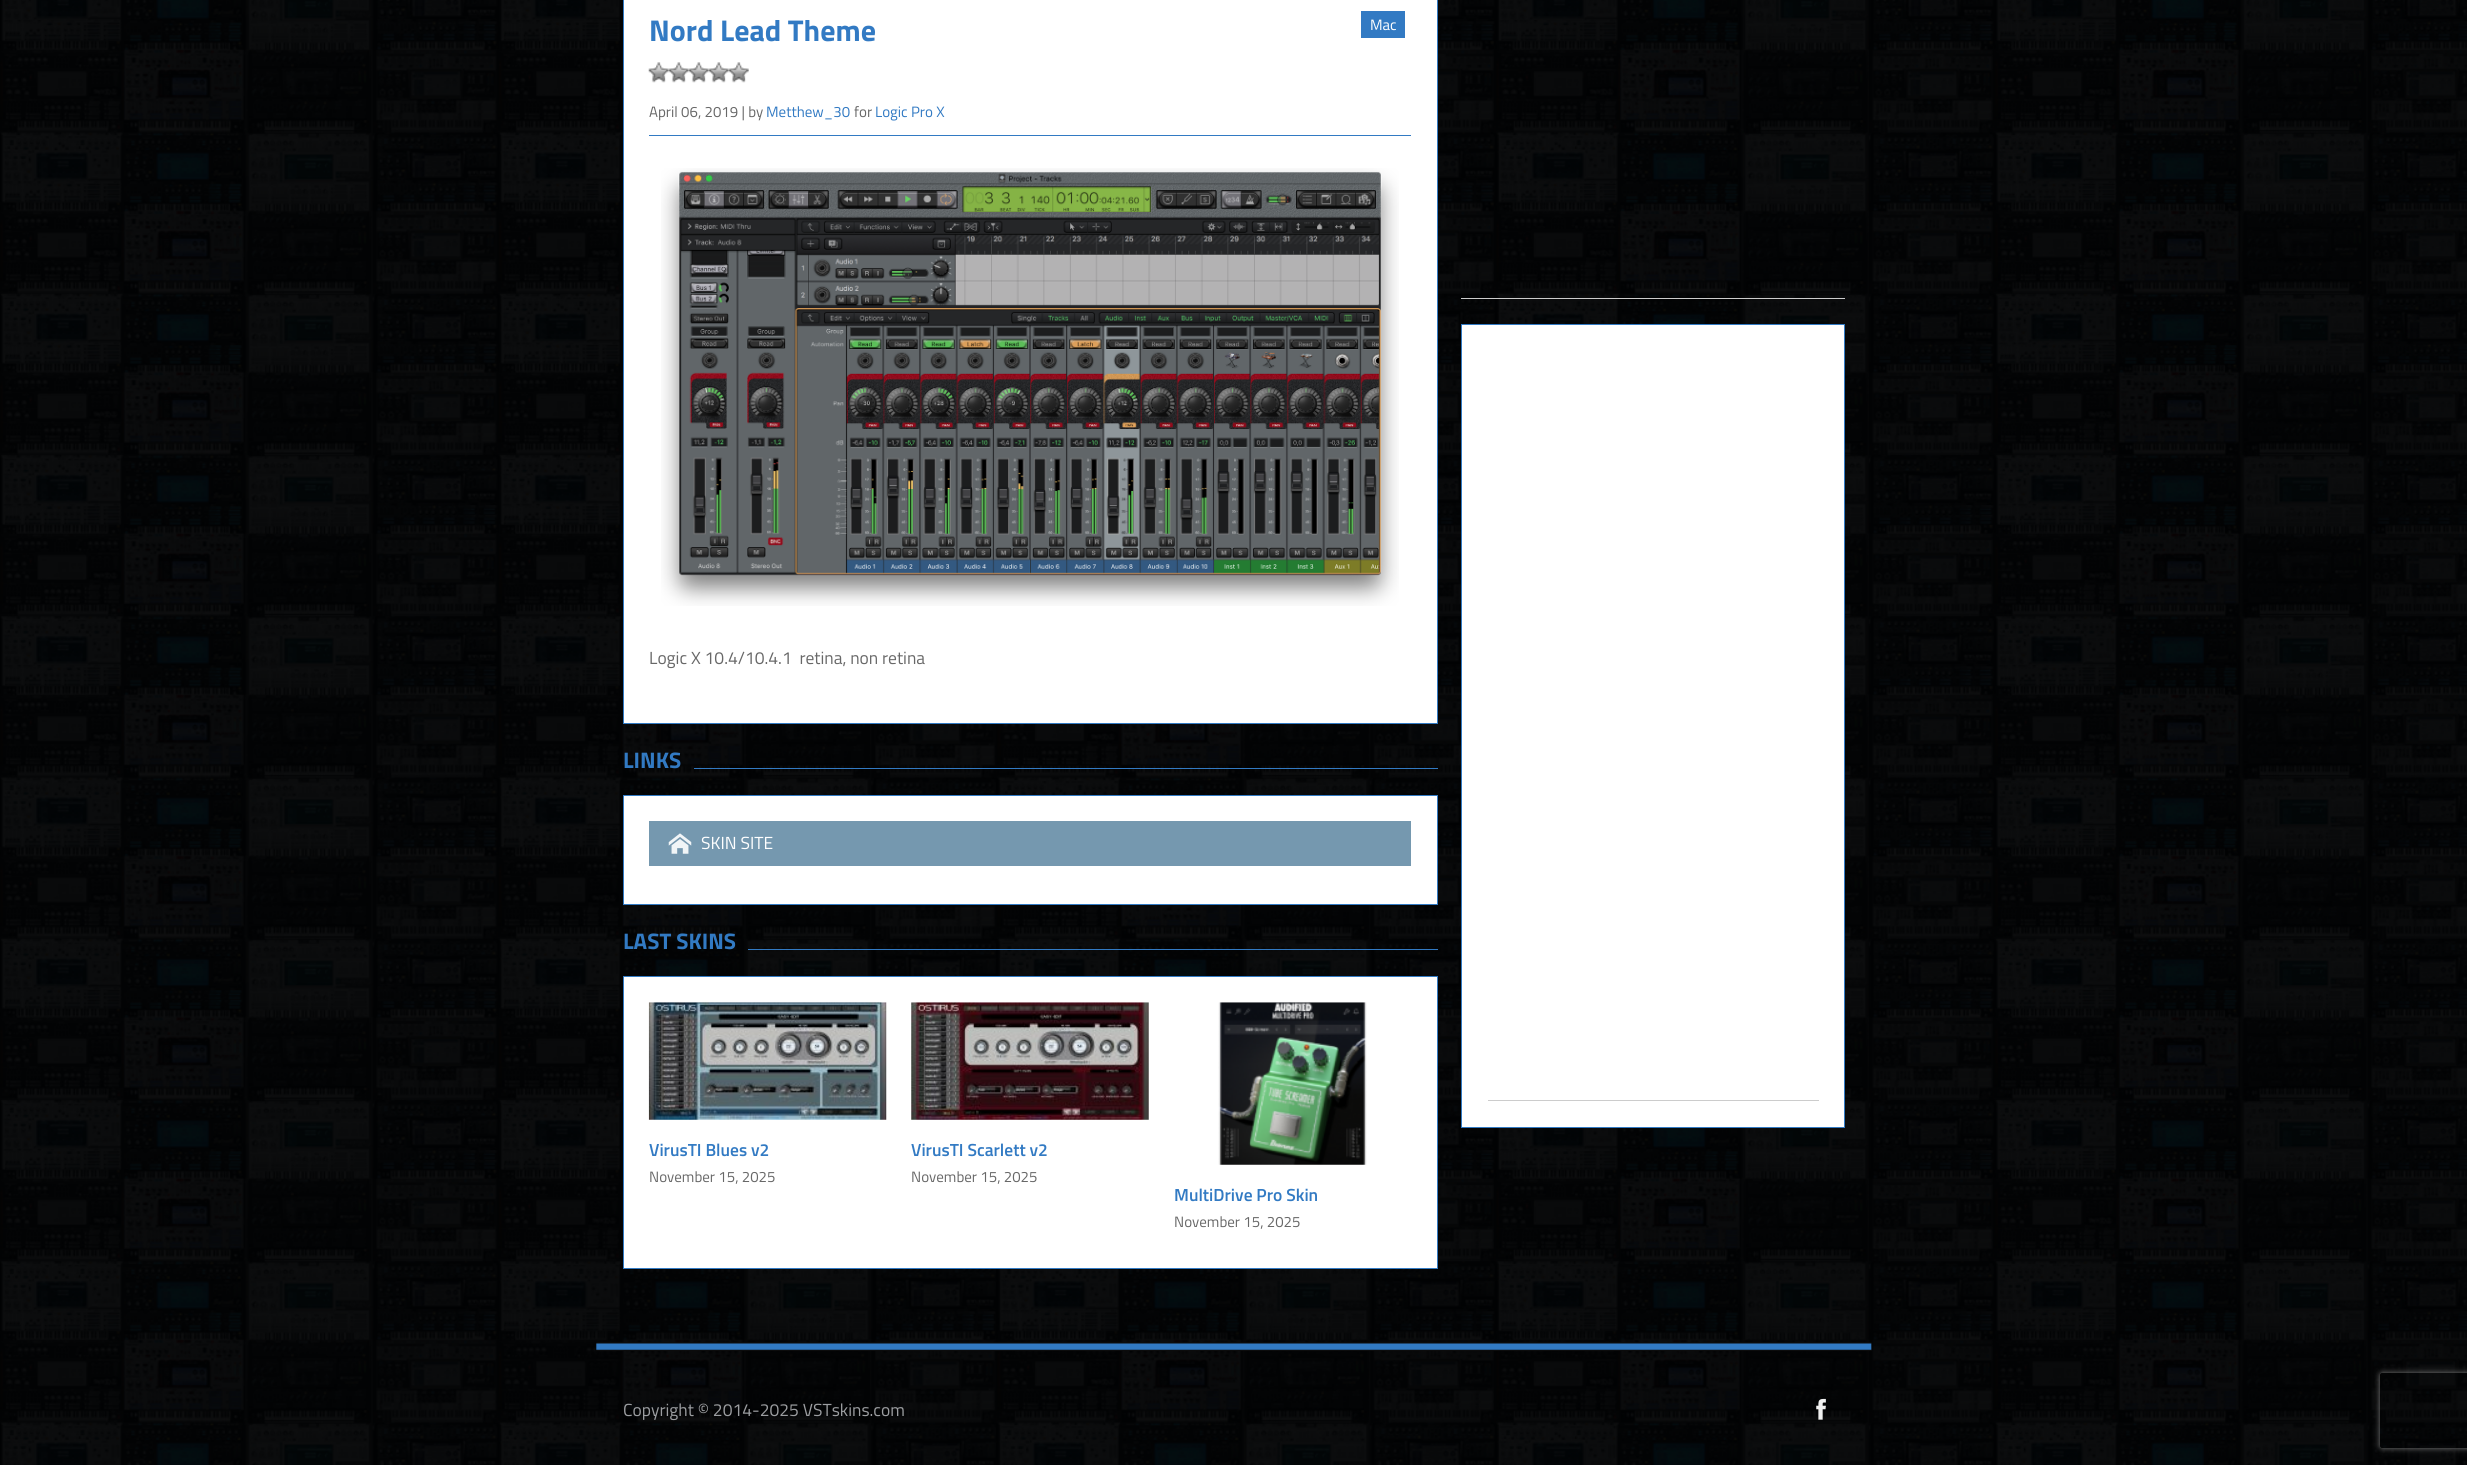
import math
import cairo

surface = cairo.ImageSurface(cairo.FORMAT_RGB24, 2467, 1465)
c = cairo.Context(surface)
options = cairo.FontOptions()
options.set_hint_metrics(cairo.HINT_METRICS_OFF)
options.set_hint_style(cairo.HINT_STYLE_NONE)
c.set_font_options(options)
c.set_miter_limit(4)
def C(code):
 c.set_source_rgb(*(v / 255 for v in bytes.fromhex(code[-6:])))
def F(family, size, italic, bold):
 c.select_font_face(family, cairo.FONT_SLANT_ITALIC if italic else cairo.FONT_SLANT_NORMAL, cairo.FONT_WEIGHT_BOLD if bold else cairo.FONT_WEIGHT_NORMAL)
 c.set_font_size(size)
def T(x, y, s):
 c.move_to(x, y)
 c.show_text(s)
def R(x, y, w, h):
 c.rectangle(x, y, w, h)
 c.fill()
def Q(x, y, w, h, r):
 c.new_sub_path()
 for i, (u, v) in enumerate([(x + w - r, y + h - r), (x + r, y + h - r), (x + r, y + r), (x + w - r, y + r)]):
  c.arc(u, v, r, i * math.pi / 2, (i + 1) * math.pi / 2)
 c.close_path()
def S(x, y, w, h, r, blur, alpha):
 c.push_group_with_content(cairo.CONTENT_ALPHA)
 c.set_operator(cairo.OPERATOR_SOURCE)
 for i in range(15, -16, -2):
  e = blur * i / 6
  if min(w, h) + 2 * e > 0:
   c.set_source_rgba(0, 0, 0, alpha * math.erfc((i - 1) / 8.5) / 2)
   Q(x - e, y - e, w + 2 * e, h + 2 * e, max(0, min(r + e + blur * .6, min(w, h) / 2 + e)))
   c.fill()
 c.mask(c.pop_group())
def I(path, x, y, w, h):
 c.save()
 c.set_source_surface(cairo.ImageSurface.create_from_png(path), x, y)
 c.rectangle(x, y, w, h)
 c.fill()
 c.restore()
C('ffffff')
c.paint()
I('1.png',0,0,2467,1465)
C('ffffff')
c.rectangle(623.5,-.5,814,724)
c.fill_preserve()
C('327ac3')
c.set_line_width(1)
c.stroke()
F('Titillium Web',30,0,1)
T(649,41,'Nord Lead Theme')
I('2.png',648,62,21,21)
I('3.png',668,62,21,21)
I('3.png',688,62,21,21)
I('3.png',708,62,21,21)
I('3.png',728,62,21,21)
R(1361,11,44,27)
F('Titillium Web',15,0,0)
C('ffffff')
T(1370,30,'Mac')
C('686868')
T(649,117,'April 06, 2019 | by')
C('327ac3')
T(766,117,'Metthew_30')
C('686868')
T(854,117,'for')
C('327ac3')
T(875,117,'Logic Pro X')
R(649,135,762,1)
I('4.png',661,168,738,438)
F('Titillium Web',17.5,0,0)
C('686868')
T(649,664,'Logic X 10.4/10.4.1  retina, non retina')
F('Titillium Web',22.5,0,1)
C('327ac3')
T(623,768,'LINKS')
R(694,768,744,1)
C('ffffff')
c.rectangle(623.5,795.5,814,109)
c.fill_preserve()
C('327ac3')
c.stroke()
C('7598af')
R(649,821,762,45)
I('5.png',668,833,24,21)
F('Titillium Web',17.5,0,0)
C('ffffff')
T(701,849,'SKIN SITE')
F('Titillium Web',22.5,0,1)
C('327ac3')
T(623,949,'LAST SKINS')
R(748,949,690,1)
C('ffffff')
c.rectangle(623.5,976.5,814,292)
c.fill_preserve()
C('327ac3')
c.stroke()
I('6.png',648,1002,239,118)
F('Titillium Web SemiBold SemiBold',17.5,0,0)
T(649,1156,'VirusTI Blues v2')
F('Titillium Web',15,0,0)
C('686868')
T(649,1182,'November 15, 2025')
I('7.png',911,1002,238,118)
F('Titillium Web SemiBold SemiBold',17.5,0,0)
C('327ac3')
T(911,1156,'VirusTI Scarlett v2')
F('Titillium Web',15,0,0)
C('686868')
T(911,1182,'November 15, 2025')
I('8.png',1218,1002,149,163)
F('Titillium Web SemiBold SemiBold',17.5,0,0)
C('327ac3')
T(1174,1201,'MultiDrive Pro Skin')
F('Titillium Web',15,0,0)
C('686868')
T(1174,1227,'November 15, 2025')
C('cccccc')
R(1461,298,384,1)
C('ffffff')
c.rectangle(1461.5,324.5,383,803)
c.fill_preserve()
C('327ac3')
c.stroke()
C('cccccc')
R(1488,1100,331,1)
I('9.png',595,1342,1277,9)
F('Titillium Web',17.5,0,0)
C('9c9ea1')
T(623,1416,'Copyright © 2014-2025 VSTskins.com')
I('10.png',1816,1398,10,22)
c.save()
c.set_fill_rule(cairo.FILL_RULE_EVEN_ODD)
c.new_path()
c.move_to(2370,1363)
c.line_to(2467,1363)
c.line_to(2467,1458)
c.line_to(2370,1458)
c.close_path()
c.move_to(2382.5,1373)
c.line_to(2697.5,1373)
c.curve_to(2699,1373,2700,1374,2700,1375.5)
c.line_to(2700,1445.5)
c.curve_to(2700,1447,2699,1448,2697.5,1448)
c.line_to(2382.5,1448)
c.curve_to(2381,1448,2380,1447,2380,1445.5)
c.line_to(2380,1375.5)
c.curve_to(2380,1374,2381,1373,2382.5,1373)
c.close_path()
c.clip()
C('808080')
S(2380,1373,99,75,2.5,3,1)
c.restore()
surface.write_to_png('o.png')
